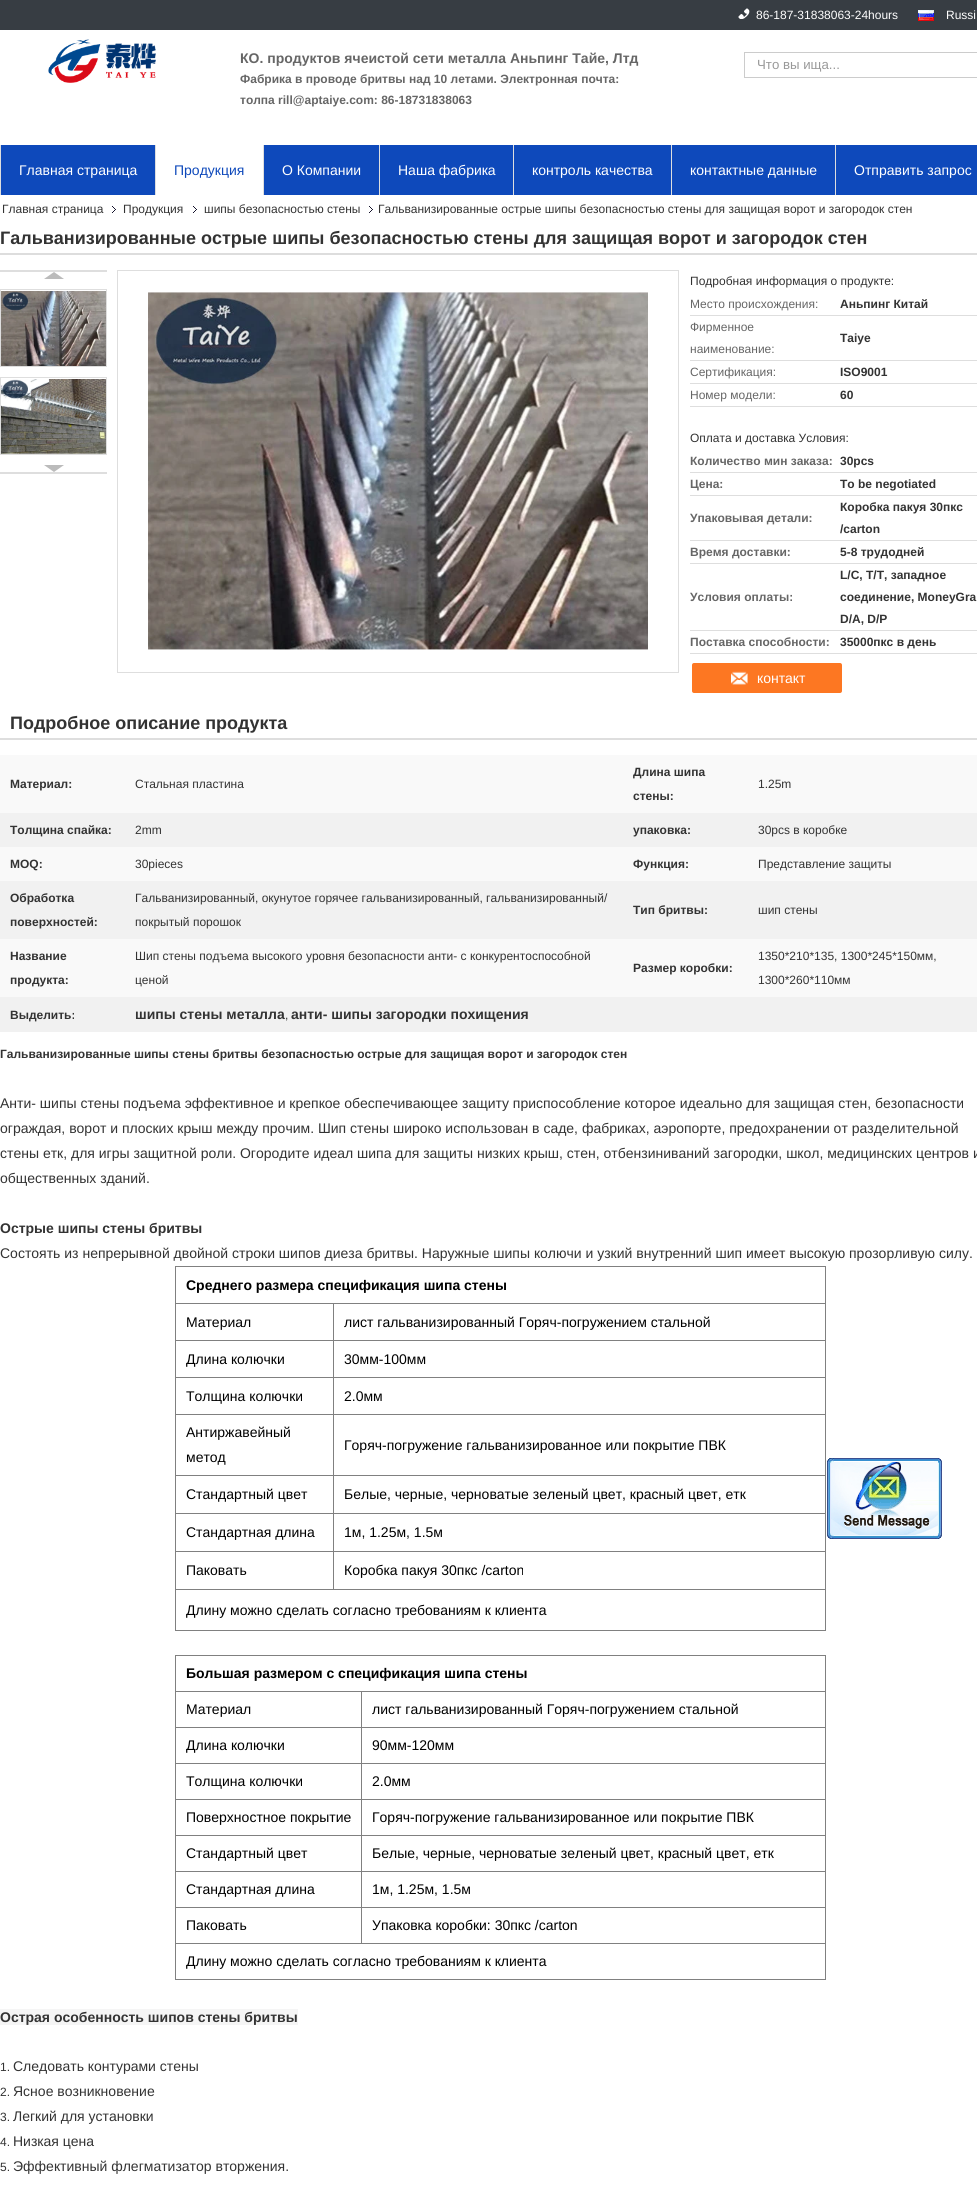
import math
import cairo

surface = cairo.ImageSurface(cairo.FORMAT_RGB24, 977, 2201)
c = cairo.Context(surface)
options = cairo.FontOptions()
options.set_hint_metrics(cairo.HINT_METRICS_OFF)
options.set_hint_style(cairo.HINT_STYLE_NONE)
c.set_font_options(options)
c.set_miter_limit(4)
def C(code):
 c.set_source_rgb(*(v / 255 for v in bytes.fromhex(code[-6:])))
def F(family, size, italic, bold):
 c.select_font_face(family, cairo.FONT_SLANT_ITALIC if italic else cairo.FONT_SLANT_NORMAL, cairo.FONT_WEIGHT_BOLD if bold else cairo.FONT_WEIGHT_NORMAL)
 c.set_font_size(size)
def T(x, y, s):
 c.move_to(x, y)
 c.show_text(s)
def R(x, y, w, h):
 c.rectangle(x, y, w, h)
 c.fill()
def Q(x, y, w, h, r):
 c.new_sub_path()
 for i, (u, v) in enumerate([(x + w - r, y + h - r), (x + r, y + h - r), (x + r, y + r), (x + w - r, y + r)]):
  c.arc(u, v, r, i * math.pi / 2, (i + 1) * math.pi / 2)
 c.close_path()
def I(path, x, y, w, h):
 c.save()
 c.set_source_surface(cairo.ImageSurface.create_from_png(path), x, y)
 c.rectangle(x, y, w, h)
 c.fill()
 c.restore()
C('ffffff')
c.paint()
C('373d43')
R(0,0,977,30)
I('1.png',738,8,12,11)
F('Liberation Sans',12,0,0)
C('ffffff')
T(756,19,'86-187-31838063-24hours')
I('2.png',918,10,16,11)
T(946,19,'Russi')
I('3.png',48,39,108,44)
F('Liberation Sans',14,0,1)
C('666666')
T(240,63,'КО. продуктов ячеистой сети металла Аньпинг Тайе, Лтд')
F('Liberation Sans',12,0,1)
T(240,83,'Фабрика в проводе бритвы над 10 летами. Электронная почта:')
T(240,104,'толпа rill@aptaiye.com: 86-18731838063')
C('cccccc')
R(744,52,233,1)
R(744,77,233,1)
R(744,52,1,26)
F('Liberation Sans',13.25,0,0)
C('999999')
T(757,69,'Что вы ища...')
C('0e49bb')
R(1,145,976,50)
C('dedede')
R(0,145,1,50)
F('Liberation Sans',14,0,0)
C('ffffff')
T(19,175,'Главная страница')
R(156,145,107,50)
C('dedede')
R(155,145,1,50)
C('0e49bb')
T(174,175,'Продукция')
C('dedede')
R(263,145,1,50)
C('ffffff')
T(282,175,'О Компании')
C('dedede')
R(379,145,1,50)
C('ffffff')
T(398,175,'Наша фабрика')
C('dedede')
R(513,145,1,50)
C('ffffff')
T(532,175,'контроль качества')
C('dedede')
R(671,145,1,50)
C('ffffff')
T(690,175,'контактные данные')
C('dedede')
R(835,145,1,50)
C('ffffff')
T(854,175,'Отправить запрос')
F('Liberation Sans',12,0,0)
C('333333')
T(2,213,'Главная страница')
I('4.png',112,206,4,7)
T(123,213,'Продукция')
I('4.png',193,206,4,7)
T(204,213,'шипы безопасностью стены')
I('4.png',369,206,4,7)
T(378,213,'Гальванизированные острые шипы безопасностью стены для защищая ворот и загородок стен')
C('dddddd')
R(0,253,977,2)
F('Liberation Sans',18,0,1)
C('333333')
T(0,244,'Гальванизированные острые шипы безопасностью стены для защищая ворот и загородок стен')
C('dedede')
R(0,270,107,2)
C('bbbbbb')
c.new_path()
c.move_to(64,279)
c.line_to(44,279)
c.line_to(54,272)
c.close_path()
c.fill()
c.rectangle(.5,289.5,106,77)
C('dedede')
c.set_line_width(1)
c.stroke()
I('5.png',1,291,105,75)
c.rectangle(.5,377.5,106,77)
c.stroke()
I('6.png',1,379,105,75)
R(0,472,107,2)
C('bbbbbb')
c.new_path()
c.move_to(44,465)
c.line_to(64,465)
c.line_to(54,472)
c.close_path()
c.fill()
c.rectangle(117.5,270.5,561,402)
C('dedede')
c.stroke()
I('7.png',148,292,500,358)
F('Liberation Sans',12,0,0)
C('333333')
T(690,285,'Подробная информация о продукте:')
C('666666')
T(690,308,'Место происхождения:')
C('dedede')
R(690,315,287,1)
F('Liberation Sans',12,0,1)
C('333333')
T(840,308,'Аньпинг Китай')
F('Liberation Sans',12,0,0)
C('666666')
T(690,331,'Фирменное')
T(690,353,'наименование:')
C('dedede')
R(690,360,287,1)
F('Liberation Sans',12,0,1)
C('333333')
T(840,342,'Taiye')
F('Liberation Sans',12,0,0)
C('666666')
T(690,376,'Сертификация:')
C('dedede')
R(690,383,287,1)
F('Liberation Sans',12,0,1)
C('333333')
T(840,376,'ISO9001')
F('Liberation Sans',12,0,0)
C('666666')
T(690,399,'Номер модели:')
C('dedede')
R(690,406,287,1)
F('Liberation Sans',12,0,1)
C('333333')
T(840,399,'60')
F('Liberation Sans',12,0,0)
T(690,442,'Оплата и доставка Условия:')
F('Liberation Sans',12,0,1)
C('666666')
T(690,465,'Количество мин заказа:')
C('dedede')
R(690,472,287,1)
C('333333')
T(840,465,'30pcs')
C('666666')
T(690,488,'Цена:')
C('dedede')
R(690,495,287,1)
C('333333')
T(840,488,'To be negotiated')
C('666666')
T(690,522,'Упаковывая детали:')
C('dedede')
R(690,540,287,1)
C('333333')
T(840,511,'Коробка пакуя 30пкс')
T(840,533,'/carton')
C('666666')
T(690,556,'Время доставки:')
C('dedede')
R(690,563,287,1)
C('333333')
T(840,556,'5-8 трудодней')
C('666666')
T(690,601,'Условия оплаты:')
C('dedede')
R(690,630,287,1)
C('333333')
T(840,579,'L/C, T/T, западное')
T(840,601,'соединение, MoneyGra')
T(840,623,'D/A, D/P')
C('666666')
T(690,646,'Поставка способности:')
C('dedede')
R(690,653,287,1)
C('333333')
T(840,646,'35000пкс в день')
C('fd7722')
Q(692,663,150,30,2)
c.fill()
I('8.png',731,671,17,14)
F('Liberation Sans',14,0,0)
C('ffffff')
T(757,683,'контакт')
C('dedede')
R(0,738,977,2)
F('Liberation Sans',18,0,1)
C('333333')
T(10,729,'Подробное описание продукта')
C('f9f9f9')
R(0,755,977,242)
F('Liberation Sans',12,0,1)
C('333333')
T(10,788,'Материал:')
F('Liberation Sans',12,0,0)
T(135,788,'Стальная пластина')
F('Liberation Sans',12,0,1)
T(633,776,'Длина шипа')
T(633,800,'стены:')
F('Liberation Sans',12,0,0)
T(758,788,'1.25m')
C('f1f1f1')
R(0,813,977,34)
F('Liberation Sans',12,0,1)
C('333333')
T(10,834,'Толщина спайка:')
F('Liberation Sans',12,0,0)
T(135,834,'2mm')
F('Liberation Sans',12,0,1)
T(633,834,'упаковка:')
F('Liberation Sans',12,0,0)
T(758,834,'30pcs в коробке')
F('Liberation Sans',12,0,1)
T(10,868,'MOQ:')
F('Liberation Sans',12,0,0)
T(135,868,'30pieces')
F('Liberation Sans',12,0,1)
T(633,868,'Функция:')
F('Liberation Sans',12,0,0)
T(758,868,'Представление защиты')
C('f1f1f1')
R(0,881,977,58)
F('Liberation Sans',12,0,1)
C('333333')
T(10,902,'Обработка')
T(10,926,'поверхностей:')
F('Liberation Sans',12,0,0)
T(135,902,'Гальванизированный, окунутое горячее гальванизированный, гальванизированный/')
T(135,926,'покрытый порошок')
F('Liberation Sans',12,0,1)
T(633,914,'Тип бритвы:')
F('Liberation Sans',12,0,0)
T(758,914,'шип стены')
F('Liberation Sans',12,0,1)
T(10,960,'Название')
T(10,984,'продукта:')
F('Liberation Sans',12,0,0)
T(135,960,'Шип стены подъема высокого уровня безопасности анти- с конкурентоспособной')
T(135,984,'ценой')
F('Liberation Sans',12,0,1)
T(633,972,'Размер коробки:')
F('Liberation Sans',12,0,0)
T(758,960,'1350*210*135, 1300*245*150мм,')
T(758,984,'1300*260*110мм')
C('f1f1f1')
R(0,997,977,35)
F('Liberation Sans',12,0,1)
C('333333')
T(10,1019,'Выделить:')
F('Liberation Sans',14,0,1)
T(135,1019,'шипы стены металла')
F('Liberation Sans',12,0,0)
T(285,1019,',')
F('Liberation Sans',14,0,1)
T(291,1019,'анти- шипы загородки похищения')
F('Liberation Sans',12,0,1)
T(0,1058,'Гальванизированные шипы стены бритвы безопасностью острые для защищая ворот и загородок стен')
F('Liberation Sans',14,0,0)
T(0,1108,'Анти- шипы стены подъема эффективное и крепкое обеспечивающее защиту приспособление которое идеально для защищая стен, безопасности')
T(0,1133,'ограждая, ворот и плоских крыш между прочим. Шип стены широко использован в саде, фабриках, аэропорте, предохранении от разделительной')
T(0,1158,'стены етк, для игры защитной роли. Огородите идеал шипа для защиты низких крыш, стен, отбензиниваний загородки, школ, медицинских центров и')
T(0,1183,'общественных зданий.')
F('Liberation Sans',14,0,1)
T(0,1233,'Острые шипы стены бритвы')
F('Liberation Sans',14,0,0)
T(0,1258,'Состоять из непрерывной двойной строки шипов диеза бритвы. Наружные шипы колючи и узкий внутренний шип имеет высокую прозорливую силу.')
C('808080')
R(175,1266,651,1)
R(825,1266,1,365)
R(175,1630,651,1)
R(175,1266,1,365)
F('Liberation Sans',14,0,1)
C('000000')
T(186,1290,'Среднего размера спецификация шипа стены')
C('808080')
R(333,1303,493,1)
R(333,1340,493,1)
R(333,1377,493,1)
R(333,1414,493,1)
R(333,1475,493,1)
R(333,1513,493,1)
R(333,1551,493,1)
R(175,1589,651,1)
R(333,1551,1,39)
R(175,1551,159,1)
R(333,1513,1,39)
R(175,1513,159,1)
R(333,1475,1,39)
R(175,1475,159,1)
R(333,1414,1,62)
R(175,1414,159,1)
R(333,1377,1,38)
R(175,1377,159,1)
R(333,1340,1,38)
R(175,1340,159,1)
R(333,1303,1,38)
R(175,1303,159,1)
F('Liberation Sans',14,0,0)
C('000000')
T(186,1327,'Материал')
T(344,1327,'лист гальванизированный Горяч-погружением стальной')
T(186,1364,'Длина колючки')
T(344,1364,'30мм-100мм')
T(186,1401,'Толщина колючки')
T(344,1401,'2.0мм')
T(186,1437,'Антиржавейный')
T(186,1462,'метод')
T(344,1450,'Горяч-погружение гальванизированное или покрытие ПВК')
T(186,1499,'Стандартный цвет')
T(344,1499,'Белые, черные, черноватые зеленый цвет, красный цвет, етк')
T(186,1537,'Стандартная длина')
T(344,1537,'1м, 1.25м, 1.5м')
T(186,1575,'Паковать')
T(344,1575,'Коробка пакуя 30пкс /carton')
T(186,1615,'Длину можно сделать согласно требованиям к клиента')
C('808080')
R(175,1655,651,1)
R(825,1655,1,325)
R(175,1979,651,1)
R(175,1655,1,325)
F('Liberation Sans',14,0,1)
C('000000')
T(186,1678,'Большая размером с спецификация шипа стены')
C('808080')
R(361,1691,465,1)
R(361,1727,465,1)
R(361,1763,465,1)
R(361,1799,465,1)
R(361,1835,465,1)
R(361,1871,465,1)
R(361,1907,465,1)
R(175,1943,651,1)
R(361,1907,1,37)
R(175,1907,187,1)
R(361,1871,1,37)
R(175,1871,187,1)
R(361,1835,1,37)
R(175,1835,187,1)
R(361,1799,1,37)
R(175,1799,187,1)
R(361,1763,1,37)
R(175,1763,187,1)
R(361,1727,1,37)
R(175,1727,187,1)
R(361,1691,1,37)
R(175,1691,187,1)
F('Liberation Sans',14,0,0)
C('000000')
T(186,1714,'Материал')
T(372,1714,'лист гальванизированный Горяч-погружением стальной')
T(186,1750,'Длина колючки')
T(372,1750,'90мм-120мм')
T(186,1786,'Толщина колючки')
T(372,1786,'2.0мм')
T(186,1822,'Поверхностное покрытие')
T(372,1822,'Горяч-погружение гальванизированное или покрытие ПВК')
T(186,1858,'Стандартный цвет')
T(372,1858,'Белые, черные, черноватые зеленый цвет, красный цвет, етк')
T(186,1894,'Стандартная длина')
T(372,1894,'1м, 1.25м, 1.5м')
T(186,1930,'Паковать')
T(372,1930,'Упаковка коробки: 30пкс /carton')
T(186,1966,'Длину можно сделать согласно требованиям к клиента')
C('f5f5f5')
R(0,2009,298,16)
F('Liberation Sans',14,0,1)
C('333333')
T(0,2022,'Острая особенность шипов стены бритвы')
F('Liberation Sans',12,0,0)
T(0,2071,'1.')
F('Liberation Sans',14,0,0)
T(13,2071,'Следовать контурами стены')
F('Liberation Sans',12,0,0)
T(0,2096,'2.')
F('Liberation Sans',14,0,0)
T(13,2096,'Ясное возникновение')
F('Liberation Sans',12,0,0)
T(0,2121,'3.')
F('Liberation Sans',14,0,0)
T(13,2121,'Легкий для установки')
F('Liberation Sans',12,0,0)
T(0,2146,'4.')
F('Liberation Sans',14,0,0)
T(13,2146,'Низкая цена')
F('Liberation Sans',12,0,0)
T(0,2171,'5.')
F('Liberation Sans',14,0,0)
T(13,2171,'Эффективный флегматизатор вторжения.')
I('9.png',827,1458,115,81)
surface.write_to_png('o.png')
